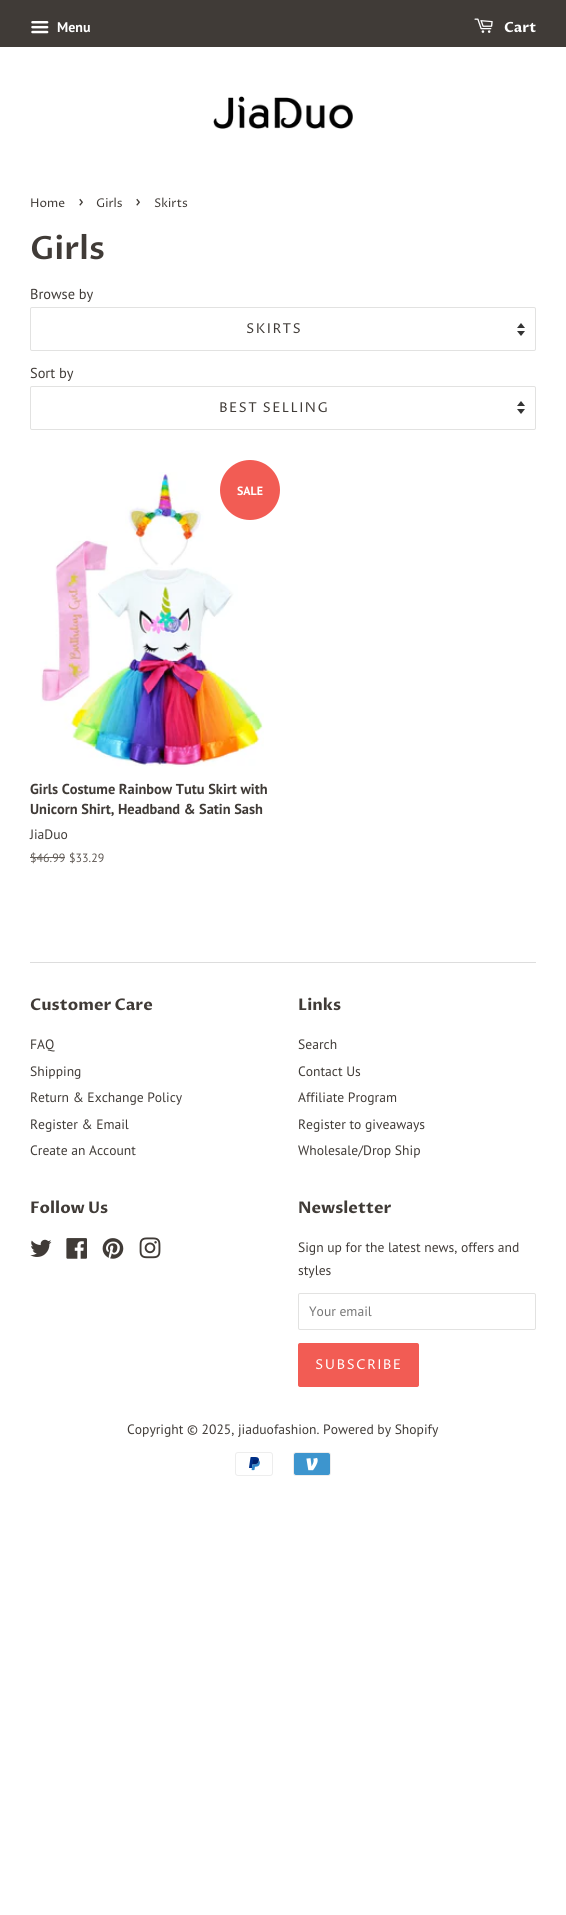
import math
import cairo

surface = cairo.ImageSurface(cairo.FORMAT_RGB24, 566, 1915)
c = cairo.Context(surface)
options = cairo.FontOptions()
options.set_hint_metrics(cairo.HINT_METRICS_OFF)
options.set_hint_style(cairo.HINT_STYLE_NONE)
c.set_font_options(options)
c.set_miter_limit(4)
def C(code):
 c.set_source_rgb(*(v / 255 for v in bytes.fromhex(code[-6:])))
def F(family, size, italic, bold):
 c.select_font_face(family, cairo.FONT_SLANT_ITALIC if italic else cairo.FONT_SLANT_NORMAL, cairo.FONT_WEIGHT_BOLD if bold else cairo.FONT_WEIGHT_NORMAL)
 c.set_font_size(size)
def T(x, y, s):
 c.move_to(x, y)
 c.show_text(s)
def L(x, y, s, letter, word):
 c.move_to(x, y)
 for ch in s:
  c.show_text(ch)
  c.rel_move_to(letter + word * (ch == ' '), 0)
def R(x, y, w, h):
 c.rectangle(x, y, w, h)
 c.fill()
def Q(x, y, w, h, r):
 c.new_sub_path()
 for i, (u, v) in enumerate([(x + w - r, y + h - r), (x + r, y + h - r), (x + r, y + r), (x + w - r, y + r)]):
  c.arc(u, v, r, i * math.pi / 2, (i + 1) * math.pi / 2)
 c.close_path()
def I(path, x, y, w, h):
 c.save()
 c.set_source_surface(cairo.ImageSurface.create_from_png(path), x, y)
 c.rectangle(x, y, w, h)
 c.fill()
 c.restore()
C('ffffff')
c.paint()
C('403b37')
R(0,0,566,47)
I('1.png',31,21,18,13)
F('PT Sans',14,0,1)
C('ffffff')
T(57,32,'Menu')
I('2.png',474,18,19,15)
F('Proza Libre',14,0,1)
T(504,32,'Cart')
I('3.png',213,96,140,33)
F('Proza Libre',12,0,0)
C('403b37')
T(30,207,'Home')
F('Proza Libre',17,0,0)
T(78,207,'›')
F('Proza Libre',12,0,0)
T(96,207,'Girls')
F('Proza Libre',17,0,0)
T(135,207,'›')
F('Proza Libre',12,0,0)
T(154,207,'Skirts')
F('Proza Libre SemiBold',32,0,0)
T(30,259,'Girls')
F('PT Sans',14.4,0,0)
T(30,299,'Browse by')
I('4.png',517,323,8,13)
Q(30.5,307.5,505,43,1.5)
C('e2e2e1')
c.set_line_width(1)
c.stroke()
F('Proza Libre',13.6,0,0)
C('403b37')
L(246,333,'SKIRTS',1.4,0)
F('PT Sans',14.4,0,0)
T(30,378,'Sort by')
I('4.png',517,401,8,13)
Q(30.5,386.5,505,43,1.5)
C('e2e2e1')
c.stroke()
F('Proza Libre',13.6,0,0)
C('403b37')
L(219,412,'BEST SELLING',1.4,0)
I('5.png',40,472,224,295)
C('f25c54')
c.arc(250,490,30,0,2 * math.pi)
c.fill()
F('PT Sans',12,0,1)
C('ffffff')
T(237,495,'SALE')
F('PT Sans',14.4,0,1)
C('403b37')
T(30,794,'Girls Costume Rainbow Tutu Skirt with')
T(30,814,'Unicorn Shirt, Headband & Satin Sash')
F('PT Sans',13.6,0,0)
T(30,839,'JiaDuo')
F('PT Sans',12,0,0)
C('635d58')
T(30,862,'$46.99')
R(30,857,35,1)
C('5b544f')
T(69,862,'$33.29')
C('dddddd')
R(30,962,506,1)
F('Proza Libre',16,0,1)
C('403b37')
T(30,1010,'Customer Care')
F('PT Sans',13.6,0,0)
T(30,1049,'FAQ')
T(30,1076,'Shipping')
T(30,1102,'Return & Exchange Policy')
T(30,1129,'Register & Email')
T(30,1155,'Create an Account')
F('Proza Libre',16,0,1)
T(298,1010,'Links')
F('PT Sans',13.6,0,0)
T(298,1049,'Search')
T(298,1076,'Contact Us')
T(298,1102,'Affiliate Program')
T(298,1129,'Register to giveaways')
T(298,1155,'Wholesale/Drop Ship')
F('Proza Libre',16,0,1)
T(30,1213,'Follow Us')
I('6.png',30,1239,22,18)
I('7.png',66,1238,21,21)
I('8.png',102,1238,22,21)
I('9.png',139,1237,22,22)
T(298,1213,'Newsletter')
F('PT Sans',13.6,0,0)
T(298,1252,'Sign up for the latest news, offers and')
T(298,1275,'styles')
Q(298.5,1293.5,237,36,1.5)
C('e2e2e1')
c.stroke()
C('757575')
T(309,1316,'Your email')
C('f25c54')
Q(298,1343,121,44,2)
c.fill()
F('Proza Libre',13.6,0,0)
C('ffffff')
L(315,1369,'SUBSCRIBE',1.4,0)
F('PT Sans',13.6,0,0)
C('403b37')
T(127,1434,'Copyright © 2025, jiaduofashion. Powered by Shopify')
I('10.png',235,1452,38,24)
I('11.png',293,1452,38,24)
surface.write_to_png('o.png')
